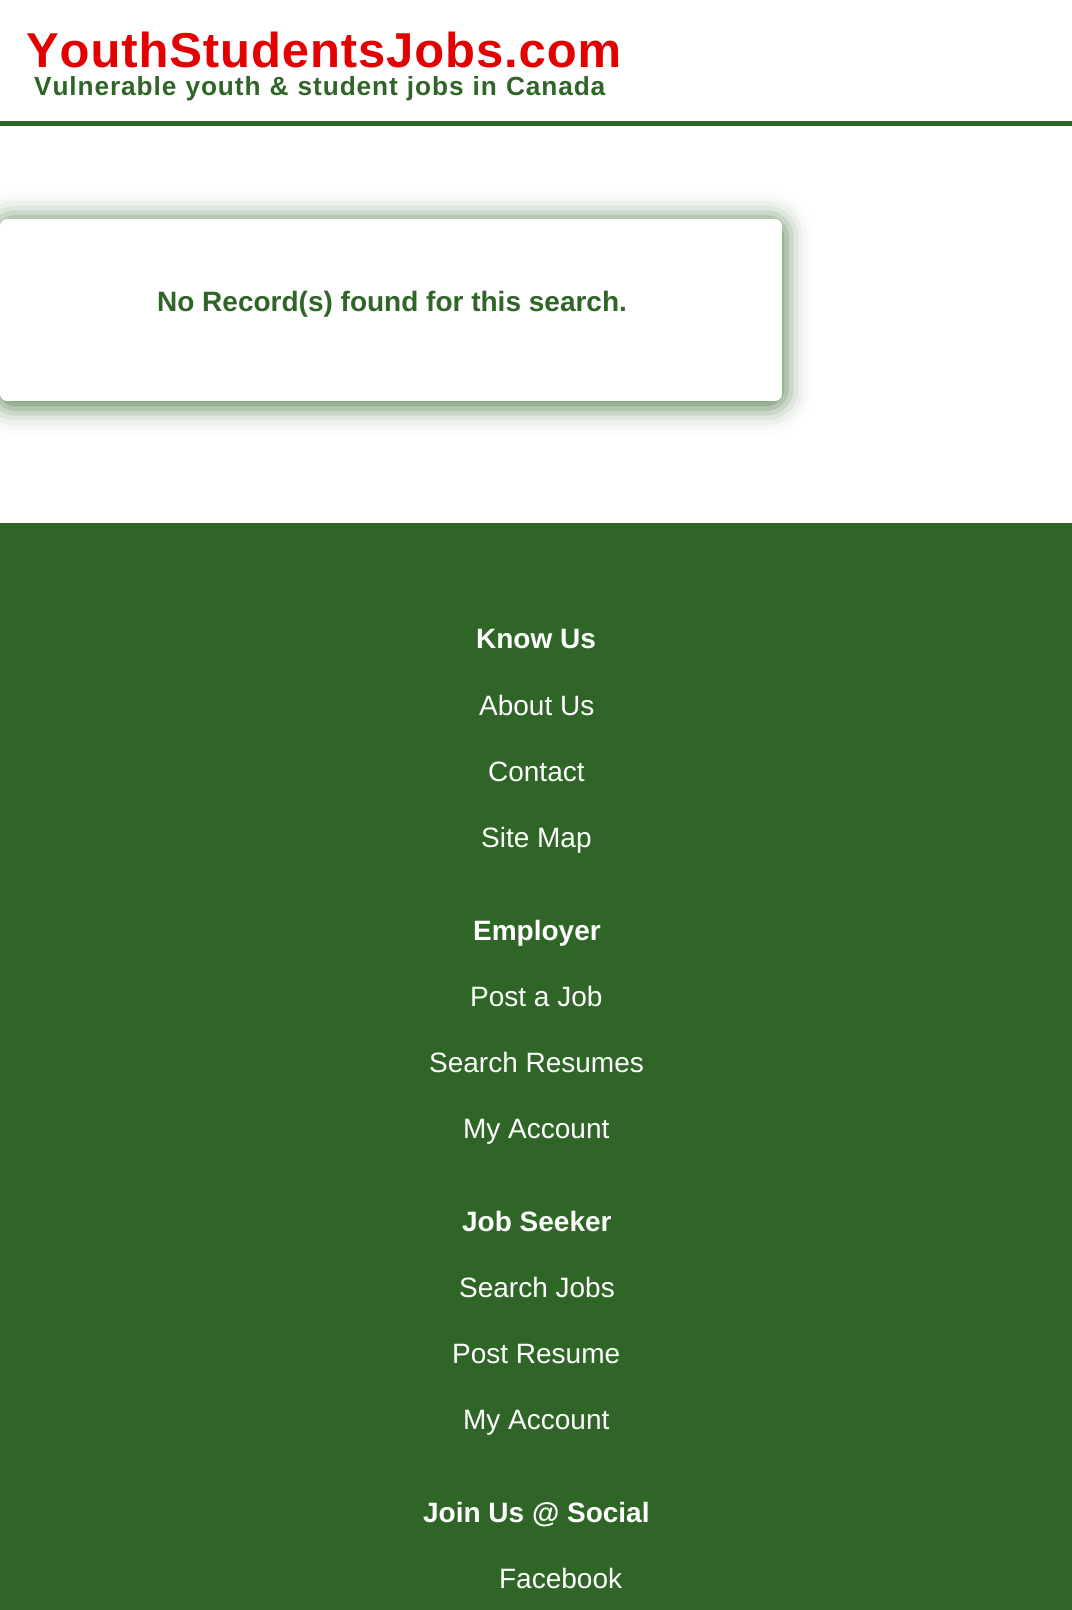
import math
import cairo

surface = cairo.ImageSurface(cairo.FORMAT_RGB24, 1072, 1610)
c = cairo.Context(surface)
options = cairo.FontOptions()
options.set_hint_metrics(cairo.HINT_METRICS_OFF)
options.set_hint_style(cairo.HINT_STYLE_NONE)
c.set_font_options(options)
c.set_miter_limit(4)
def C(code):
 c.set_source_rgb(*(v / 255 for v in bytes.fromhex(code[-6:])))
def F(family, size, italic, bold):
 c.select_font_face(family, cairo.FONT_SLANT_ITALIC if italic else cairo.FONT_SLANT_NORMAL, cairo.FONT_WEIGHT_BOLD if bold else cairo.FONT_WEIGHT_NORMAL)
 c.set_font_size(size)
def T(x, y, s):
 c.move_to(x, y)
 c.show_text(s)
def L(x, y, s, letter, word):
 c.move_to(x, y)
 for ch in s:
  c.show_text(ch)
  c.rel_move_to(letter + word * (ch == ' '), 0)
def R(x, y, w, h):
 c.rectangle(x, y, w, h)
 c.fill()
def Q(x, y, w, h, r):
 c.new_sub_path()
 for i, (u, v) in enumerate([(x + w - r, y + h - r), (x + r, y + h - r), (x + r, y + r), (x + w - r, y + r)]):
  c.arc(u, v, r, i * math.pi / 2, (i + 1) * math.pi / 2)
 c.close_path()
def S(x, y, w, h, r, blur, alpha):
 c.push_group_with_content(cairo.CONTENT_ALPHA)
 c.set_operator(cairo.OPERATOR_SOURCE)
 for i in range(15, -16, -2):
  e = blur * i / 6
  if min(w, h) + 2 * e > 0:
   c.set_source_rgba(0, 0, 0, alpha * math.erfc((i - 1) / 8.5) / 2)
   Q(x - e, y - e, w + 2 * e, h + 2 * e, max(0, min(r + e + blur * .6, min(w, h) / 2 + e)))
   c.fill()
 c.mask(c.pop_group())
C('ffffff')
c.paint()
C('2f6527')
R(0,121,1072,5)
F('Liberation Sans',49,0,1)
C('e20000')
L(26,67,'YouthStudentsJobs.com',.9,0)
F('Liberation Sans',26.25,0,1)
C('2f6527')
L(34,95,'Vulnerable youth & student jobs in Canada',.9,0)
C('2f6527')
S(0,222,782,182,7,14,1)
C('ffffff')
Q(0,219,782,182,7)
c.fill()
F('Liberation Sans',28,0,1)
C('2f6527')
T(157,311,'No Record(s) found for this search.')
R(0,523,1072,1087)
C('ffffff')
T(476,648,'Know Us')
F('Liberation Sans',28,0,0)
T(479,715,'About Us')
T(488,781,'Contact')
T(481,847,'Site Map')
F('Liberation Sans',28,0,1)
T(473,940,'Employer')
F('Liberation Sans',28,0,0)
T(470,1006,'Post a Job')
T(429,1072,'Search Resumes')
T(463,1138,'My Account')
F('Liberation Sans',28,0,1)
T(462,1231,'Job Seeker')
F('Liberation Sans',28,0,0)
T(459,1297,'Search Jobs')
T(452,1363,'Post Resume')
T(463,1429,'My Account')
F('Liberation Sans',28,0,1)
T(423,1522,'Join Us @ Social')
F('Liberation Sans',28,0,0)
T(499,1588,'Facebook')
surface.write_to_png('o.png')
